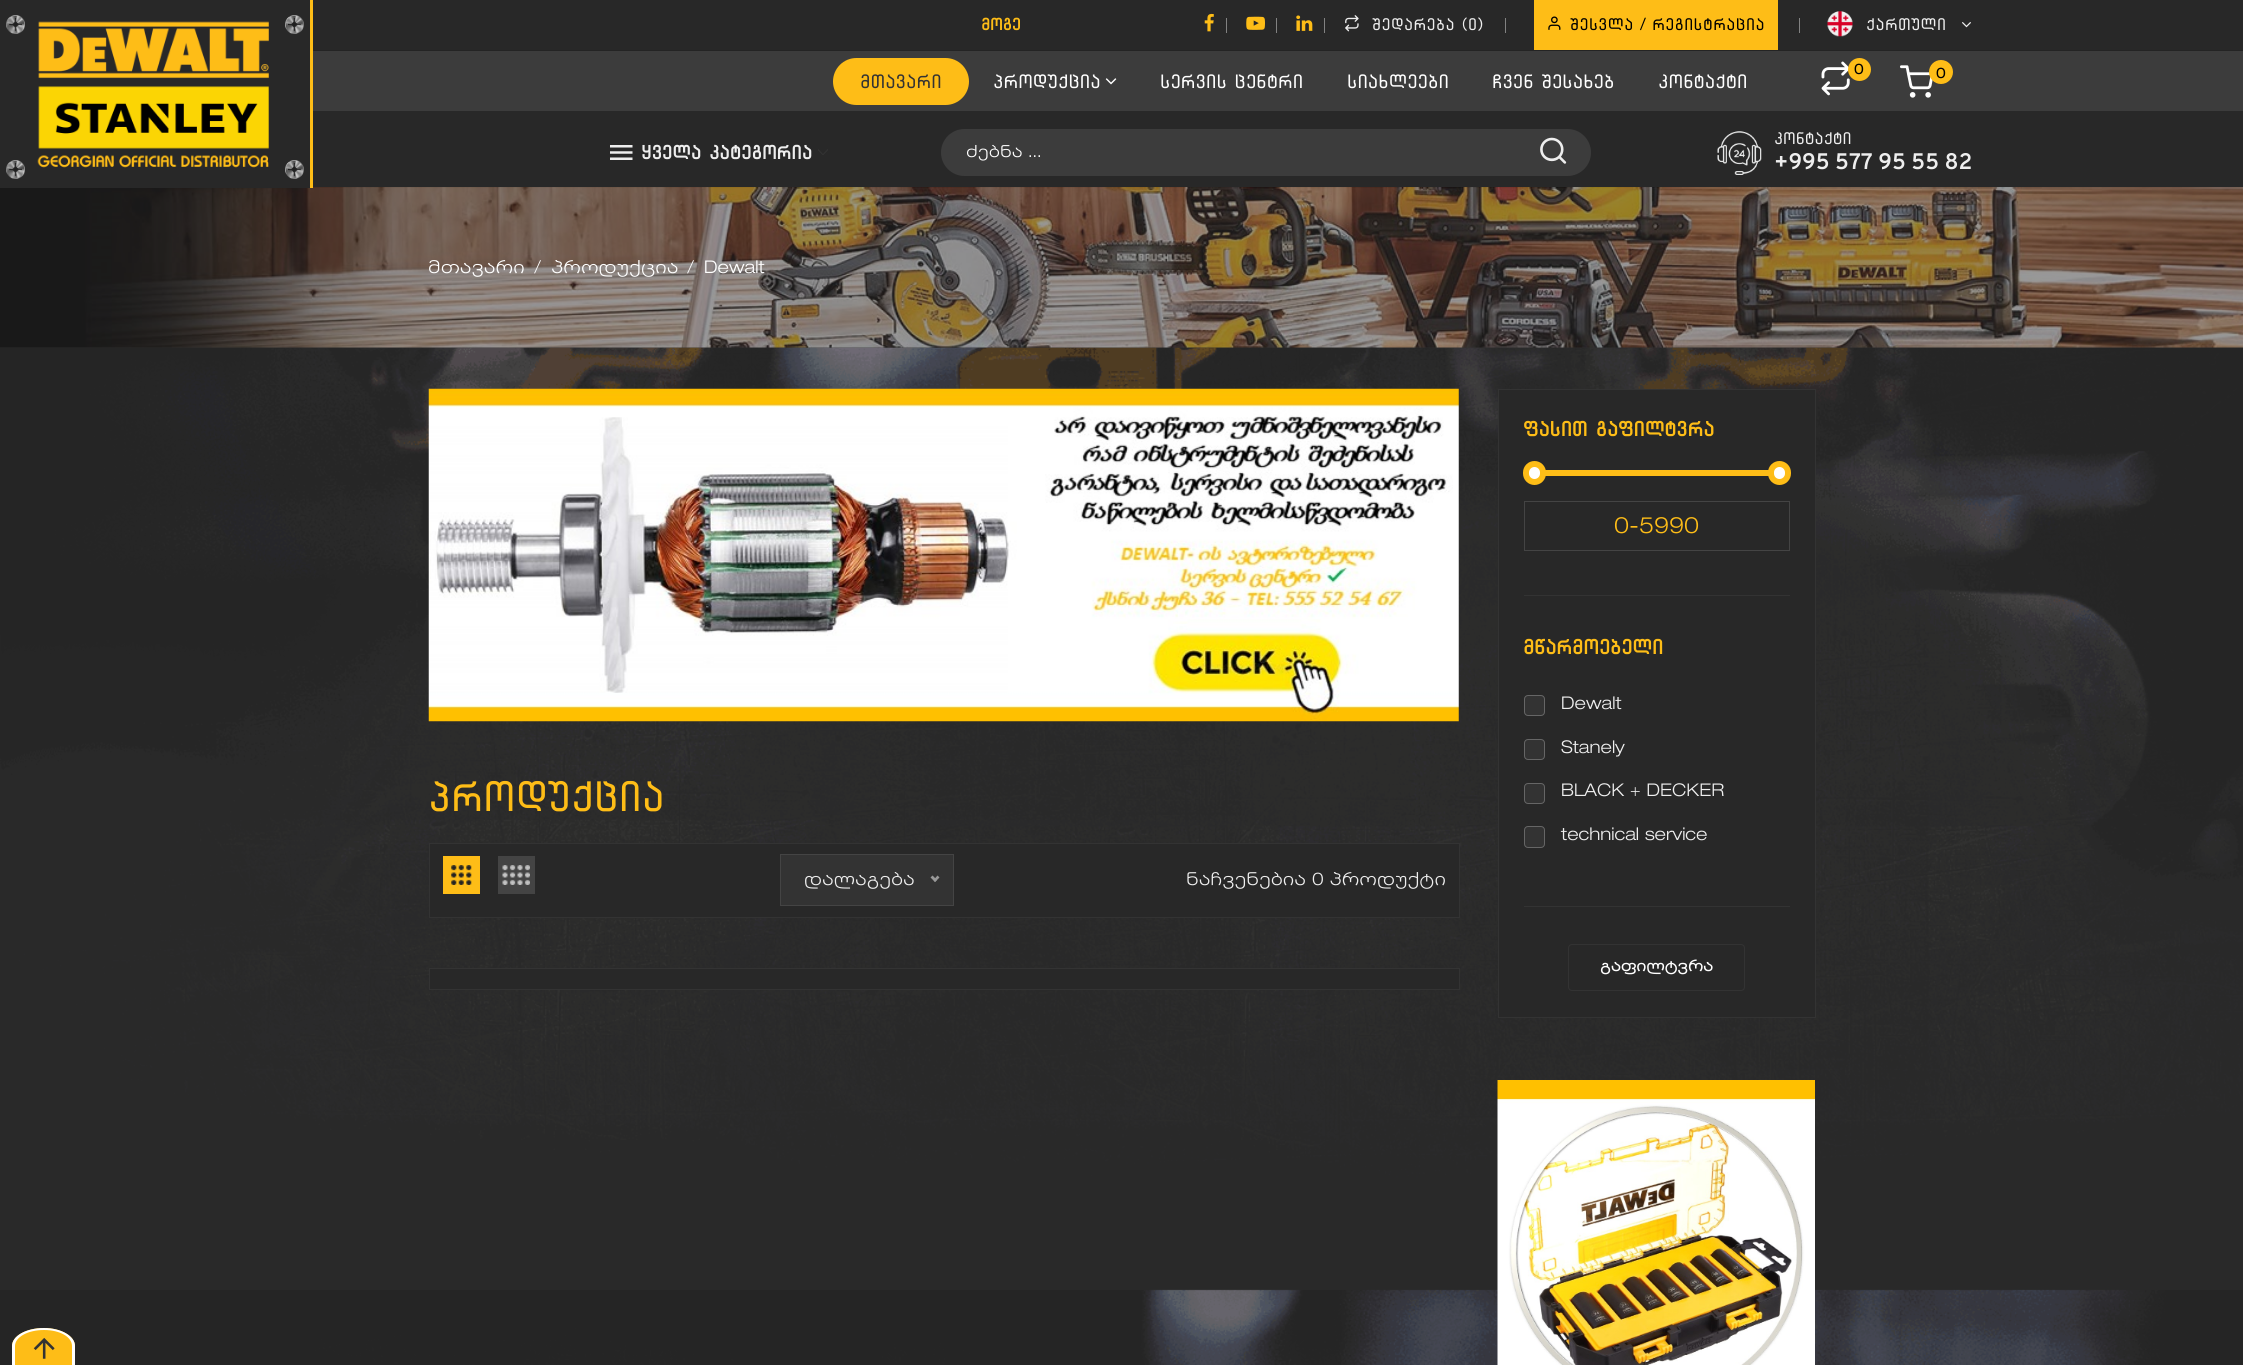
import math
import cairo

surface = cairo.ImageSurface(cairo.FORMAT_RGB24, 2243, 1365)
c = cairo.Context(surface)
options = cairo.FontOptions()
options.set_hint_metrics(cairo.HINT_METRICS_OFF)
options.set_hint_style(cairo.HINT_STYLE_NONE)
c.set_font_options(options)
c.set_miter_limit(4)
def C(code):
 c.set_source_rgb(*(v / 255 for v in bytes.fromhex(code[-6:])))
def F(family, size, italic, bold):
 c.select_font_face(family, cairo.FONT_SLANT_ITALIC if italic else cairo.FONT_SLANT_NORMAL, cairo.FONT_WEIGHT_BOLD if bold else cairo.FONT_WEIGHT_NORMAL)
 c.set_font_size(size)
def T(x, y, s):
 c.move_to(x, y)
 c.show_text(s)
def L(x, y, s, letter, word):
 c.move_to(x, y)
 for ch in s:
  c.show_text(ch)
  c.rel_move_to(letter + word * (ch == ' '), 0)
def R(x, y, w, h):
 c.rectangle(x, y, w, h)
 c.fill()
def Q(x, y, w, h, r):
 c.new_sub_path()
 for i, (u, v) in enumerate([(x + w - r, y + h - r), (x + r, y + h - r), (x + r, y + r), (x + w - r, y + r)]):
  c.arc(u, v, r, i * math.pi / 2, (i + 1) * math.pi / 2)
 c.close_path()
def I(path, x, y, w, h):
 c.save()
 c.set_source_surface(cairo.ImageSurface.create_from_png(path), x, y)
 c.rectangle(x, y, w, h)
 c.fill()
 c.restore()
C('ffffff')
c.paint()
I('1.png',0,347,2243,1018)
C('282828')
R(313,0,1930,188)
I('19.png',0,187,2243,161)
R(0,0,310,188)
C('febd17')
R(310,0,3,188)
I('2.png',6,15,19,19)
I('3.png',37,21,232,147)
I('4.png',285,15,19,19)
I('2.png',6,160,19,19)
I('4.png',285,160,19,19)
C('242424')
R(314,50,1929,1)
F('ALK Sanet',16.25,0,1)
C('febd17')
T(981,30,'მოგე')
I('5.png',1204,13,10,19)
C('828282')
R(1226,18,1,15)
I('6.png',1246,16,19,14)
R(1276,18,1,15)
I('7.png',1296,15,17,16)
R(1324,18,1,15)
I('8.png',1345,15,14,17)
F('ALK Sanet',16.25,0,0)
C('eeeeee')
L(1372,30,'შედარება (0)',.4,0)
C('828282')
R(1505,18,1,15)
C('febd17')
R(1534,0,244,50)
I('9.png',1548,16,13,14)
C('000000')
L(1570,30,'შესვლა / რეგისტრაცია',.4,0)
C('828282')
R(1799,18,1,15)
I('10.png',1827,11,26,26)
C('eeeeee')
L(1866,30,'ქართული',.4,0)
I('11.png',1962,22,9,6)
C('3c3c3c')
R(313,51,1930,60)
I('12.png',1821,61,29,35)
C('febd17')
c.arc(1859.5,69.5,11.5,0,2 * math.pi)
c.fill()
F('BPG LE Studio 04',14,0,1)
C('000000')
T(1854,74,'0')
I('13.png',1900,65,33,33)
C('febd17')
c.arc(1941,72,12,0,2 * math.pi)
c.fill()
C('000000')
T(1936,78,'0')
C('febd17')
Q(833,58,136,47,23.5)
c.fill()
F('ALK Sanet',18.75,0,0)
C('333333')
T(860,88,'მთავარი')
C('ffffff')
T(993,88,'პროდუქცია')
I('14.png',1105,78,12,7)
T(1160,88,'სერვის ცენტრი')
T(1347,88,'სიახლეები')
T(1492,88,'ჩვენ შესახებ')
T(1658,88,'კონტაქტი')
I('15.png',610,145,23,15)
F('ALK Sanet',18.75,0,1)
C('eeeeee')
T(641,159,'ყველა კატეგორია')
I('16.png',818,149,10,6)
C('3c3c3c')
Q(941,129,650,47,23.5)
c.fill()
F('BPG LE Studio 04 Light',16.25,0,0)
C('ffffff')
T(966,157,'ძებნა ...')
I('17.png',1540,137,27,27)
I('18.png',1717,131,45,44)
F('ALK Sanet',16.25,0,0)
C('eeeeee')
T(1774,144,'კონტაქტი')
F('Overpass SemiBold',22.5,0,0)
T(1774,169,'+995 577 95 55 82')
c.set_source_rgba(0.2,0.2,0.2,0.5)
R(0,188,2243,160)
F('BPG LE Studio 04 Light',17.5,0,0)
C('ffffff')
T(428,273,'მთავარი')
T(534,273,'/')
T(551,273,'პროდუქცია')
T(687,273,'/')
T(704,273,'Dewalt')
I('20.png',428,388,1031,334)
F('ALK Sanet',41.25,0,0)
C('febd17')
T(428,811,'პროდუქცია')
C('282828')
c.rectangle(429.5,843.5,1030,74)
c.fill_preserve()
C('333333')
c.set_line_width(1)
c.stroke()
C('febd17')
R(443,856,37,38)
I('21.png',451,865,21,20)
C('444444')
R(498,856,37,38)
I('22.png',502,865,28,20)
C('333333')
c.rectangle(780.5,854.5,173,51)
c.fill_preserve()
C('444444')
c.stroke()
F('BPG LE Studio 04 Light',17.5,0,0)
C('eeeeee')
T(804,885,'დალაგება')
C('999999')
c.new_path()
c.move_to(937.5,875.5)
c.line_to(939.5,877.5)
c.line_to(935,882)
c.line_to(933.5,880)
c.close_path()
c.fill()
c.new_path()
c.move_to(932.5,875.5)
c.line_to(937,880)
c.line_to(935,882)
c.line_to(930.5,877.5)
c.close_path()
c.fill()
C('eeeeee')
T(1186,885,'ნაჩვენებია 0 პროდუქტი')
C('282828')
c.rectangle(429.5,968.5,1030,21)
c.fill_preserve()
C('333333')
c.stroke()
C('282828')
c.rectangle(1498.5,389.5,317,628)
c.fill_preserve()
C('333333')
c.stroke()
R(1524,595,266,1)
F('ALK Sanet',20,0,1)
C('febd17')
T(1523,436,'ფასით გაფილტვრა')
R(1545,470,224,6)
C('ffffff')
Q(1526,464,17,18,8.5)
c.fill_preserve()
C('febd17')
c.set_line_width(6)
c.stroke()
C('ffffff')
Q(1771,464,17,18,8.5)
c.fill_preserve()
C('febd17')
c.stroke()
c.rectangle(1524.5,501.5,265,49)
C('444444')
c.set_line_width(1)
c.stroke()
F('BPG LE Studio 04 Light',22.5,0,0)
C('febd17')
T(1614,533,'0-5990')
C('333333')
R(1524,906,266,1)
F('ALK Sanet',20,0,1)
C('febd17')
T(1523,654,'მწარმოებელი')
C('333333')
Q(1524.5,695.5,20,20,3.5)
c.fill_preserve()
C('666666')
c.stroke()
F('BPG LE Studio 04 Light',17.5,0,0)
C('eeeeee')
T(1561,709,'Dewalt')
C('333333')
Q(1524.5,739.5,20,20,3.5)
c.fill_preserve()
C('666666')
c.stroke()
C('eeeeee')
T(1561,753,'Stanely')
C('333333')
Q(1524.5,783.5,20,20,3.5)
c.fill_preserve()
C('666666')
c.stroke()
C('eeeeee')
T(1561,796,'BLACK + DECKER')
C('333333')
Q(1524.5,826.5,20,21,3.5)
c.fill_preserve()
C('666666')
c.stroke()
C('eeeeee')
T(1561,840,'technical service')
Q(1568.5,944.5,176,46,3.5)
C('333333')
c.stroke()
F('BPG LE Studio 04',15,0,1)
C('ffffff')
T(1600,971,'გაფილტვრა')
I('23.png',1497,1080,318,285)
C('febd17')
c.new_path()
c.move_to(44,1328)
c.curve_to(61,1328,75,1336,75,1346)
c.line_to(75,1365)
c.line_to(12,1365)
c.line_to(12,1346)
c.curve_to(12,1336,26,1328,44,1328)
c.close_path()
c.fill()
C('ffffff')
c.set_fill_rule(cairo.FILL_RULE_EVEN_ODD)
c.new_path()
c.move_to(44,1328)
c.curve_to(61,1328,75,1336,75,1346)
c.line_to(75,1365)
c.line_to(12,1365)
c.line_to(12,1346)
c.curve_to(12,1336,26,1328,44,1328)
c.close_path()
c.move_to(44,1330)
c.curve_to(60,1330,72,1337,72,1346)
c.line_to(72,1365)
c.line_to(15,1365)
c.line_to(15,1346)
c.curve_to(15,1337,28,1330,44,1330)
c.close_path()
c.fill()
I('24.png',33,1337,22,22)
surface.write_to_png('o.png')
